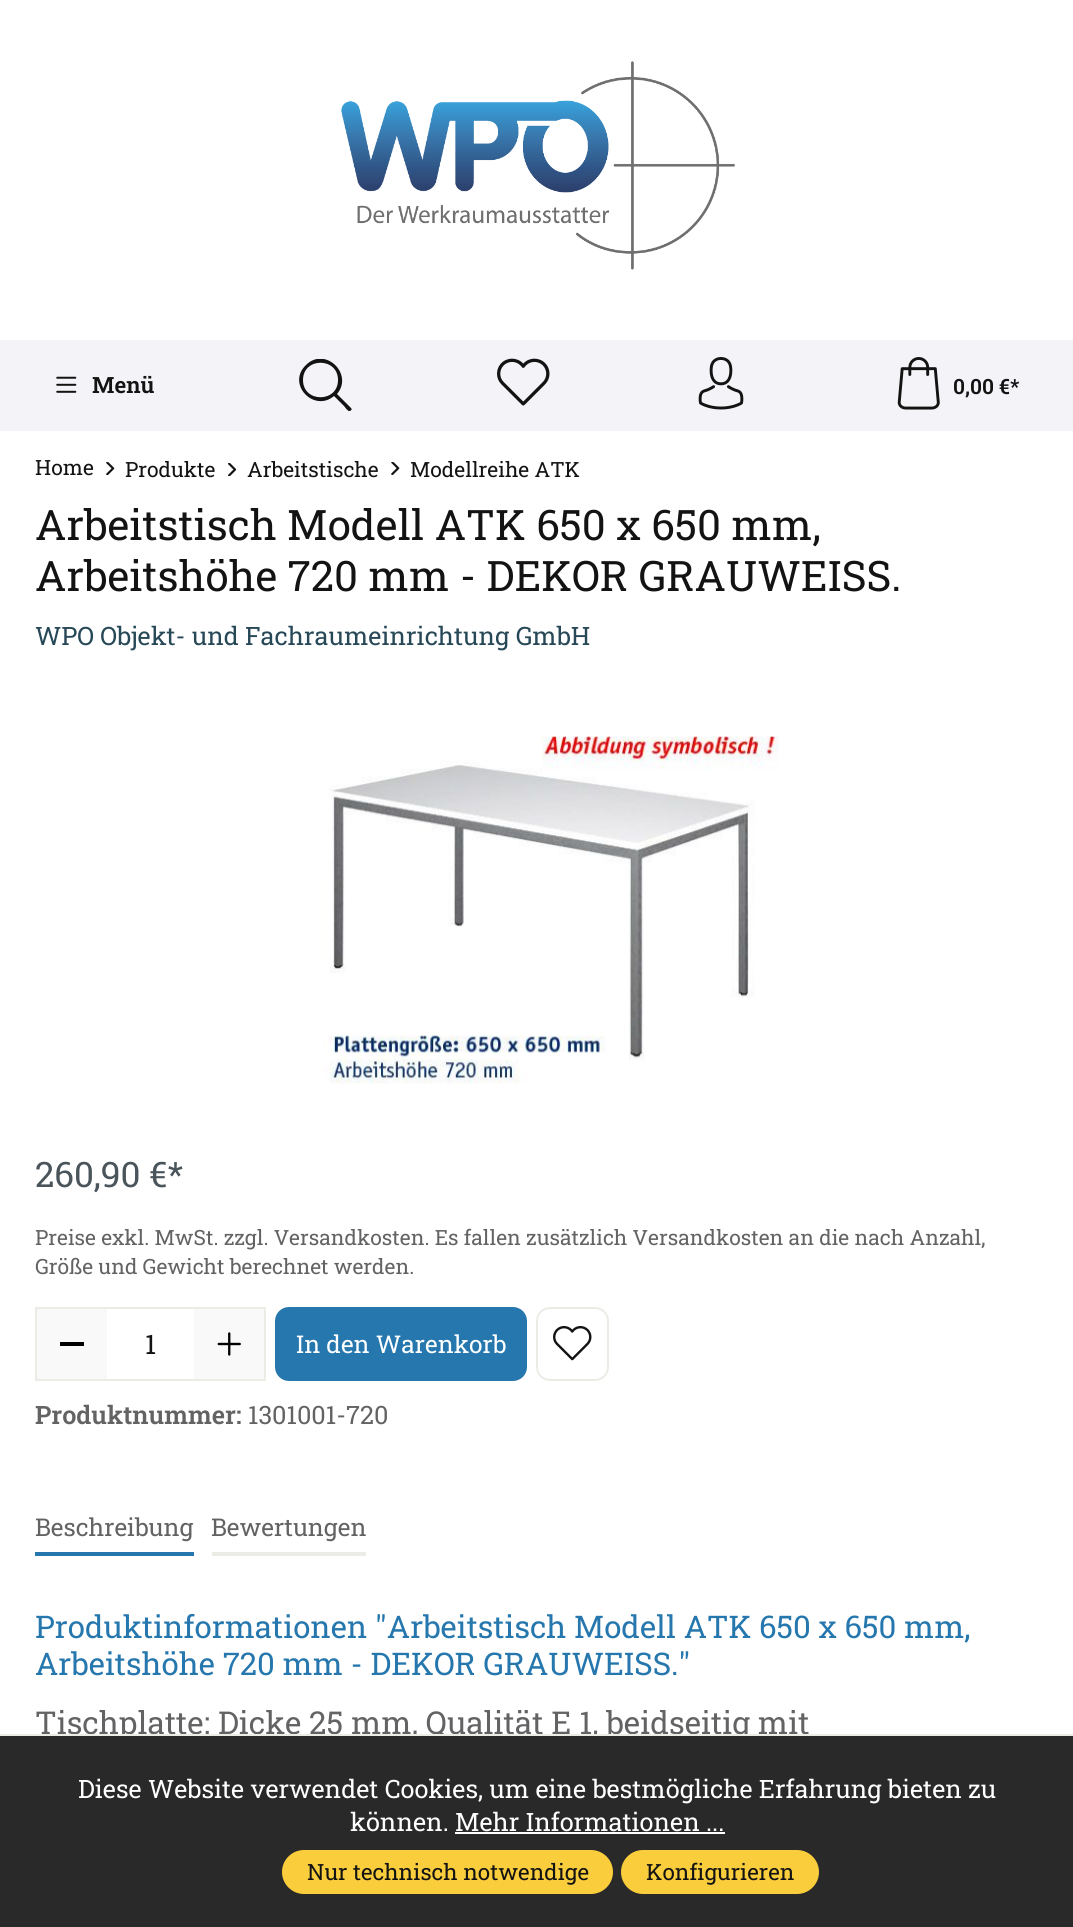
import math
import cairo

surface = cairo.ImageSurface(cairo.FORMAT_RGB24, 1073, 1927)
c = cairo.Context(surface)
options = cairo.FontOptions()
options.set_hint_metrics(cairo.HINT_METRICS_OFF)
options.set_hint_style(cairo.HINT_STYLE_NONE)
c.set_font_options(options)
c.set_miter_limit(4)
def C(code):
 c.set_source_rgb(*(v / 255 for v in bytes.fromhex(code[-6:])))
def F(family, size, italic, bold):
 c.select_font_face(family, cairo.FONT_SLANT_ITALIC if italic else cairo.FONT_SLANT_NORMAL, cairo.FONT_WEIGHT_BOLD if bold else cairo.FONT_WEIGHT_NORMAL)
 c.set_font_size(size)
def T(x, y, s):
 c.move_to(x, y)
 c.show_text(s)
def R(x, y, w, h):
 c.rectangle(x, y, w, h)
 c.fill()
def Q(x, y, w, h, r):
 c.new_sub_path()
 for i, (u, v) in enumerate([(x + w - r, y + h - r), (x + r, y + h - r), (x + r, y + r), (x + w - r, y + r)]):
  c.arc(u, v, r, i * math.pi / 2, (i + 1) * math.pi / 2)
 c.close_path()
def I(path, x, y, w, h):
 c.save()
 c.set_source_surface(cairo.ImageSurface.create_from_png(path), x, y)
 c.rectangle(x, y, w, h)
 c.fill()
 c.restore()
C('ffffff')
c.paint()
I('1.png',341,61,394,209)
C('f4f3f7')
R(0,340,1073,91)
I('2.png',56,376,21,17)
F('Roboto Slab SemiBold',22.4,0,0)
C('131313')
T(92,393,'Menü')
c.save()
c.rectangle(299,359,53,52)
c.clip()
c.new_path()
c.move_to(351,408)
c.line_to(337,394)
c.curve_to(354,374,325,346,306,365)
c.curve_to(286,384,314,413,334,396)
c.line_to(344,406)
c.curve_to(345,407,348,412,350,411)
c.curve_to(352,410,352,409,351,408)
c.close_path()
c.move_to(303,380)
c.curve_to(303,357,338,357,338,380)
c.curve_to(338,403,303,403,303,380)
c.close_path()
c.fill()
c.restore()
I('3.png',497,358,53,48)
I('4.png',698,357,46,53)
I('5.png',897,357,43,53)
F('Roboto Slab SemiBold',21,0,0)
T(953,394,'0,00 €*')
F('Roboto Slab',21,0,0)
T(35,475,'Home')
I('6.png',106,462,9,13)
T(125,477,'Produkte')
I('7.png',228,463,9,13)
T(247,477,'Arbeitstische')
I('8.png',391,462,9,13)
T(410,477,'Modellreihe ATK')
F('Roboto Slab',42,0,0)
T(35,540,'Arbeitstisch Modell ATK 650 x 650 mm,')
T(35,591,'Arbeitshöhe 720 mm - DEKOR GRAUWEISS.')
F('Roboto Slab',25.3,0,0)
C('274857')
T(35,645,'WPO Objekt- und Fachraumeinrichtung GmbH')
I('9.png',322,736,457,348)
F('Roboto Slab',35,0,0)
C('4a545b')
T(35,1187,'260,90 €*')
F('Roboto Slab',21,0,0)
C('636363')
T(35,1245,'Preise exkl. MwSt. zzgl. Versandkosten. Es fallen zusätzlich Versandkosten an die nach Anzahl,')
T(35,1274,'Größe und Gewicht berechnet werden.')
c.rectangle(36,1308,229,72)
C('ecece7')
c.stroke()
C('f9f9f9')
R(37,1309,70,70)
C('000000')
R(60,1342,24,4)
F('Roboto Slab',27,0,0)
C('131313')
T(145,1354,'1')
C('f9f9f9')
R(194,1309,70,70)
I('10.png',217,1332,24,24)
C('2577ae')
Q(275,1307,252,74,14)
c.fill()
F('Roboto Slab',24.5,0,0)
C('ffffff')
T(296,1353,'In den Warenkorb')
Q(537,1308,71,72,13)
C('ecece7')
c.stroke()
I('11.png',553,1326,39,35)
F('Roboto Slab SemiBold',25.3,0,0)
C('636363')
T(35,1424,'Produktnummer:')
F('Roboto Slab',25.3,0,0)
T(248,1424,'1301001-720')
C('2577ae')
R(35,1552,159,4)
F('Roboto Slab',24.5,0,0)
C('636363')
T(35,1536,'Beschreibung')
C('ecece7')
R(212,1552,154,4)
C('636363')
T(211,1536,'Bewertungen')
F('Roboto Slab',31.2,0,0)
C('2577ae')
T(35,1638,'Produktinformationen "Arbeitstisch Modell ATK 650 x 650 mm,')
T(35,1675,'Arbeitshöhe 720 mm - DEKOR GRAUWEISS."')
F('Roboto Slab',31.5,0,0)
C('636363')
T(35,1734,'Tischplatte: Dicke 25 mm, Qualität E 1, beidseitig mit')
C('292929')
R(0,1736,1073,191)
C('ecece7')
R(0,1734,1073,2)
F('Roboto Slab',25.3,0,0)
C('ffffff')
T(78,1798,'Diese Website verwendet Cookies, um eine bestmögliche Erfahrung bieten zu')
T(350,1831,'können. Mehr Informationen ...')
R(455,1832,270,2)
C('f9cd3b')
Q(282,1850,331,44,22)
c.fill()
F('Roboto Slab',22.4,0,0)
C('131313')
T(307,1880,'Nur technisch notwendige')
C('f9cd3b')
Q(621,1850,198,44,22)
c.fill()
C('131313')
T(646,1880,'Konfigurieren')
surface.write_to_png('o.png')
